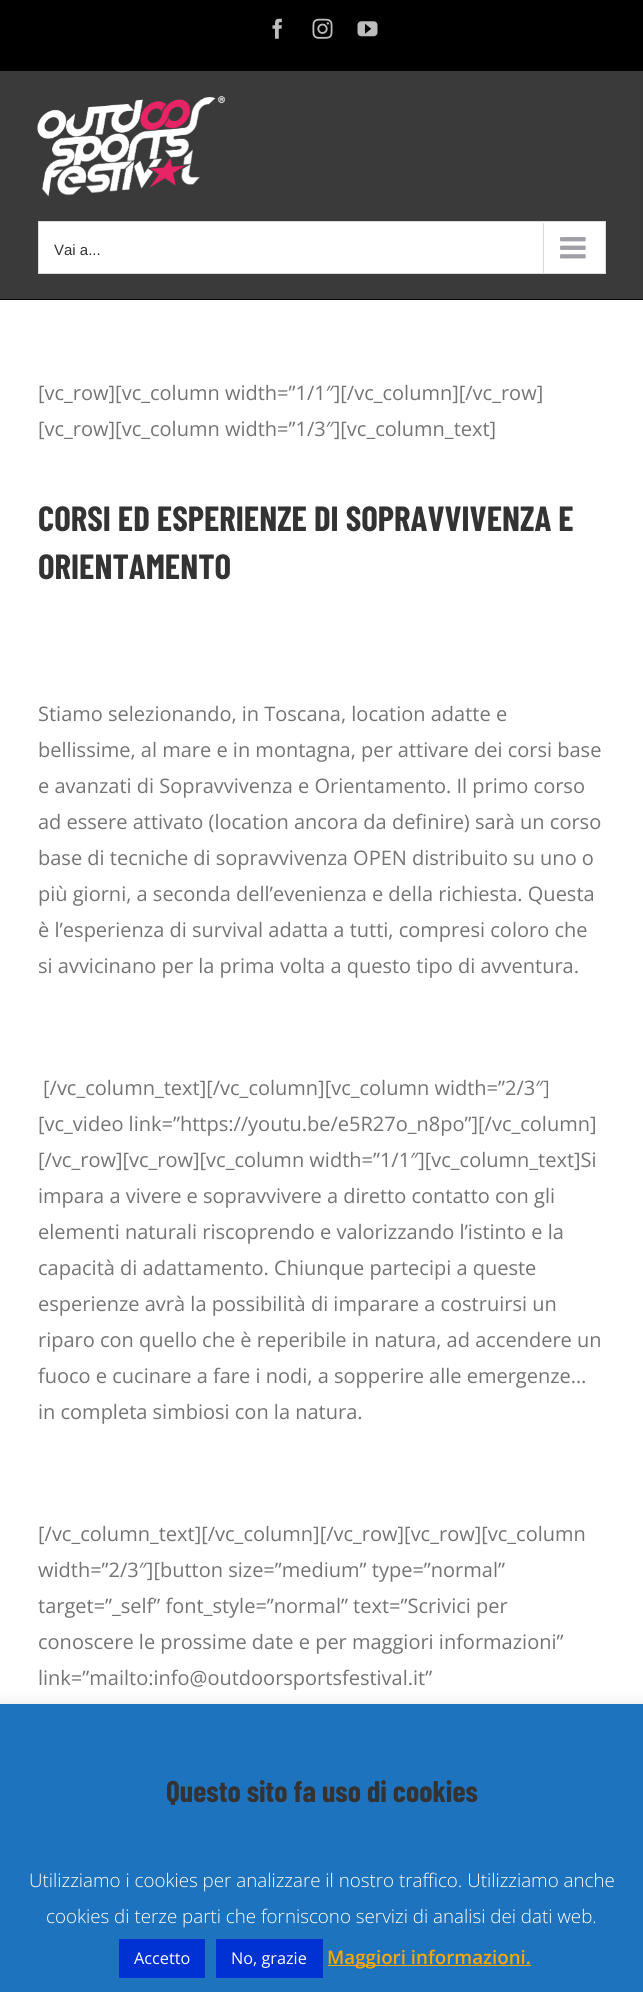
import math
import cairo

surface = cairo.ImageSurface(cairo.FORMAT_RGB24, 643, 1992)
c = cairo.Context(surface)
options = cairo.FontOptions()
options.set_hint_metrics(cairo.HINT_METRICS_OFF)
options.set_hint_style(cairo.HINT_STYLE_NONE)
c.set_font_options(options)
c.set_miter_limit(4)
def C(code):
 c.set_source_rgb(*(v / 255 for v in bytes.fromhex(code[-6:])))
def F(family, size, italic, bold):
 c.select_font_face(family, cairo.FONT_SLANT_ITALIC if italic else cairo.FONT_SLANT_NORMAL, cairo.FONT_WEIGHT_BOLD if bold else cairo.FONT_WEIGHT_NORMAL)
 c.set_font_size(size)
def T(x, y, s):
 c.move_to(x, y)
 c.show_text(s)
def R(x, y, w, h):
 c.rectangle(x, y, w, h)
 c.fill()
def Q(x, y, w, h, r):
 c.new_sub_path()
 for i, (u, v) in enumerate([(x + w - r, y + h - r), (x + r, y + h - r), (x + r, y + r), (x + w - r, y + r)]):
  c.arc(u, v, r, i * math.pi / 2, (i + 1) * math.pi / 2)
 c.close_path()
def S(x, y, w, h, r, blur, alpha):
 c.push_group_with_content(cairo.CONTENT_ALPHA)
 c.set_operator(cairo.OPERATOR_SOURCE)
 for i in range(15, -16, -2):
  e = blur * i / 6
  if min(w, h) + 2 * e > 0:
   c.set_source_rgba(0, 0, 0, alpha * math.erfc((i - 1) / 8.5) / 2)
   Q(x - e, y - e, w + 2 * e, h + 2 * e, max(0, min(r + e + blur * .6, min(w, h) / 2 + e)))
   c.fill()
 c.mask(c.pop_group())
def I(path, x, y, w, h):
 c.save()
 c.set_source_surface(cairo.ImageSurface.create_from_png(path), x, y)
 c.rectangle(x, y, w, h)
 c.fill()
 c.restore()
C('ffffff')
c.paint()
C('000000')
R(0,0,643,70)
C('020202')
R(0,70,643,1)
I('1.png',272,18,10,21)
I('2.png',312,18,21,21)
I('3.png',357,21,21,16)
C('3a3a3a')
R(0,71,643,228)
C('020202')
R(0,299,643,1)
I('4.png',37,96,188,101)
C('ffffff')
c.rectangle(38.5,221.5,567,52)
c.fill_preserve()
C('dadada')
c.set_line_width(1)
c.stroke()
F('Liberation Sans',15,0,0)
C('333333')
T(54,255,'Vai a...')
C('dadada')
R(543,223,1,50)
I('5.png',560,237,26,22)
F('Open Sans',20,0,0)
C('747474')
T(38,400,'[vc_row][vc_column width=”1/1″][/vc_column][/vc_row]')
T(38,436,'[vc_row][vc_column width=”1/3″][vc_column_text]')
F('Barlow Condensed',35,0,1)
C('333333')
T(38,531,'CORSI ED ESPERIENZE DI SOPRAVVIVENZA E')
T(38,579,'ORIENTAMENTO')
F('Open Sans',20,0,0)
C('747474')
T(38,721,'Stiamo selezionando, in Toscana, location adatte e')
T(38,757,'bellissime, al mare e in montagna, per attivare dei corsi base')
T(38,793,'e avanzati di Sopravvivenza e Orientamento. Il primo corso')
T(38,829,'ad essere attivato (location ancora da definire) sarà un corso')
T(38,865,'base di tecniche di sopravvivenza OPEN distribuito su uno o')
T(38,901,'più giorni, a seconda dell’evenienza e della richiesta. Questa')
T(38,937,'è l’esperienza di survival adatta a tutti, compresi coloro che')
T(38,973,'si avvicinano per la prima volta a questo tipo di avventura.')
T(43,1095,'[/vc_column_text][/vc_column][vc_column width=”2/3″]')
T(38,1131,'[vc_video link=”https://youtu.be/e5R27o_n8po”][/vc_column]')
T(38,1167,'[/vc_row][vc_row][vc_column width=”1/1″][vc_column_text]Si')
T(38,1203,'impara a vivere e sopravvivere a diretto contatto con gli')
T(38,1239,'elementi naturali riscoprendo e valorizzando l’istinto e la')
T(38,1275,'capacità di adattamento. Chiunque partecipi a queste')
T(38,1311,'esperienze avrà la possibilità di imparare a costruirsi un')
T(38,1347,'riparo con quello che è reperibile in natura, ad accendere un')
T(38,1383,'fuoco e cucinare a fare i nodi, a sopperire alle emergenze…')
T(38,1419,'in completa simbiosi con la natura.')
T(38,1541,'[/vc_column_text][/vc_column][/vc_row][vc_row][vc_column')
T(38,1577,'width=”2/3″][button size=”medium” type=”normal”')
T(38,1613,'target=”_self” font_style=”normal” text=”Scrivici per')
T(38,1649,'conoscere le prossime date e per maggiori informazioni”')
T(38,1685,'link=”mailto:info@outdoorsportsfestival.it”')
C('acabab')
S(0,1703,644,288,0,6,.3)
C('1e73be')
R(0,1704,643,288)
F('Barlow Condensed',30,0,1)
C('333333')
T(166,1802,'Questo sito fa uso di cookies')
F('Open Sans Light',18.75,0,0)
C('ffffff')
T(29,1887,'Utilizziamo i cookies per analizzare il nostro traffico. Utilizziamo anche')
T(46,1923,'cookies di terze parti che forniscono servizi di analisi dei dati web.')
C('0031d3')
R(119,1939,86,39)
F('Open Sans',16.25,0,0)
C('ffffff')
T(134,1964,'Accetto')
C('0031d3')
R(216,1939,107,39)
C('ffffff')
T(231,1964,'No, grazie')
C('fca800')
R(328,1965,203,1)
F('Open Sans SemiBold',18.75,0,0)
T(327,1964,'Maggiori informazioni.')
surface.write_to_png('o.png')
